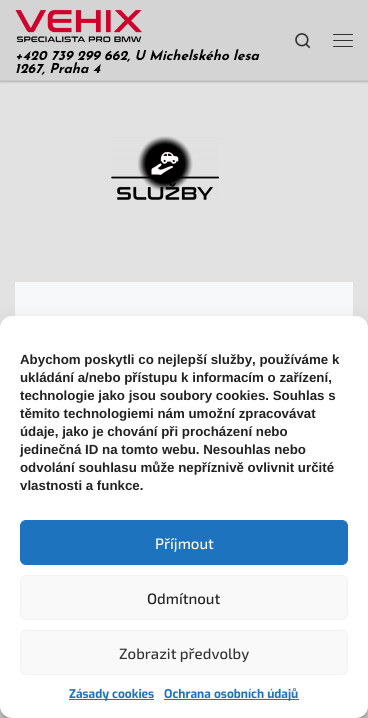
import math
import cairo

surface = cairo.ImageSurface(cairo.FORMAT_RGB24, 368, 718)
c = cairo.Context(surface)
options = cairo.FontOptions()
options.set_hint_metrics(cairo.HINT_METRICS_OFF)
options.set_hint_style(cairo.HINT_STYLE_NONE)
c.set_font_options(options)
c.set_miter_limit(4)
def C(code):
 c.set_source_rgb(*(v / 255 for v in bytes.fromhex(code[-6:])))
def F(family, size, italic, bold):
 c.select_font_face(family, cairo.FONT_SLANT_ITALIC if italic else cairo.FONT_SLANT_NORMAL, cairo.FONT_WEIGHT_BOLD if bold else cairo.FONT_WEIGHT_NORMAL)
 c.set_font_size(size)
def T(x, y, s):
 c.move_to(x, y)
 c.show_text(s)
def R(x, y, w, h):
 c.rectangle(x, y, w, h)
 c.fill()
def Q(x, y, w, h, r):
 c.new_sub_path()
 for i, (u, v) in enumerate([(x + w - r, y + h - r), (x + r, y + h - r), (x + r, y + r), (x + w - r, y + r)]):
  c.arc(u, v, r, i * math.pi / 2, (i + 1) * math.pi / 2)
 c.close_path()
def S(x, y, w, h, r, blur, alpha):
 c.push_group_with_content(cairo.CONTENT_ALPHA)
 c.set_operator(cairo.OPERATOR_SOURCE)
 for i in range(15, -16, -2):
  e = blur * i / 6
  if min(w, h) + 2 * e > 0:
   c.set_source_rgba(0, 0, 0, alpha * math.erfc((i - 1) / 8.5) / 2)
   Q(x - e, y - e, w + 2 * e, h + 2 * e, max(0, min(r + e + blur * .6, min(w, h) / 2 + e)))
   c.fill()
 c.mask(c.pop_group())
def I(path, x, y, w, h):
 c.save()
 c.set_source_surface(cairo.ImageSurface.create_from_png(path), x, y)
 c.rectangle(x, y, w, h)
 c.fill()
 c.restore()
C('e2e2e2')
c.paint()
C('d4d4d4')
R(0,0,368,80)
C('cecece')
R(0,81,368,1)
c.save()
c.rectangle(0,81,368,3)
c.clip()
C('000000')
S(0,0,368,81,0,2.5,.2)
c.restore()
I('1.png',295,33,16,16)
C('313131')
Q(333,34,20,1,.5)
c.fill()
Q(333,40,20,1,.5)
c.fill()
Q(333,46,20,1,.5)
c.fill()
I('2.png',15,9,127,34)
F('Josefin Sans Thin',13.6,1,0)
C('000000')
T(15,60,'+420 739 299 662, U Michelského lesa')
T(15,73,'1267, Praha 4')
C('c8c8c8')
R(0,80,368,1)
I('3.png',111,136,108,64)
C('f7f8f9')
R(15,282,338,34)
C('000000')
S(0,322,368,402,12,3,.23)
S(0,326,368,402,12,10,.19)
C('ffffff')
Q(0,316,368,402,12)
c.fill()
F('Liberation Sans',13.3,0,1)
C('222222')
T(20,364,'Abychom poskytli co nejlepší služby, používáme k')
T(20,382,'ukládání a/nebo přístupu k informacím o zařízení,')
T(20,400,'technologie jako jsou soubory cookies. Souhlas s')
T(20,418,'těmito technologiemi nám umožní zpracovávat')
T(20,436,'údaje, jako je chování při procházení nebo')
T(20,454,'jedinečná ID na tomto webu. Nesouhlas nebo')
T(20,472,'odvolání souhlasu může nepříznivě ovlivnit určité')
T(20,490,'vlastnosti a funkce.')
C('1e73be')
Q(20.5,520.5,327,44,5.5)
c.fill_preserve()
c.set_line_width(1)
c.stroke()
F('Exo 2 Medium',15,0,0)
C('ffffff')
T(155,549,'Příjmout')
C('f9f9f9')
Q(20.5,575.5,327,44,5.5)
c.fill_preserve()
C('f2f2f2')
c.stroke()
C('222222')
T(147,604,'Odmítnout')
C('f9f9f9')
Q(20.5,630.5,327,44,5.5)
c.fill_preserve()
C('f2f2f2')
c.stroke()
C('333333')
T(119,659,'Zobrazit předvolby')
C('1e73be')
R(69,699,85,1)
F('Exo',12,0,1)
T(69,698,'Zásady cookies')
R(164,699,135,1)
T(164,698,'Ochrana osobních údajů')
surface.write_to_png('o.png')
